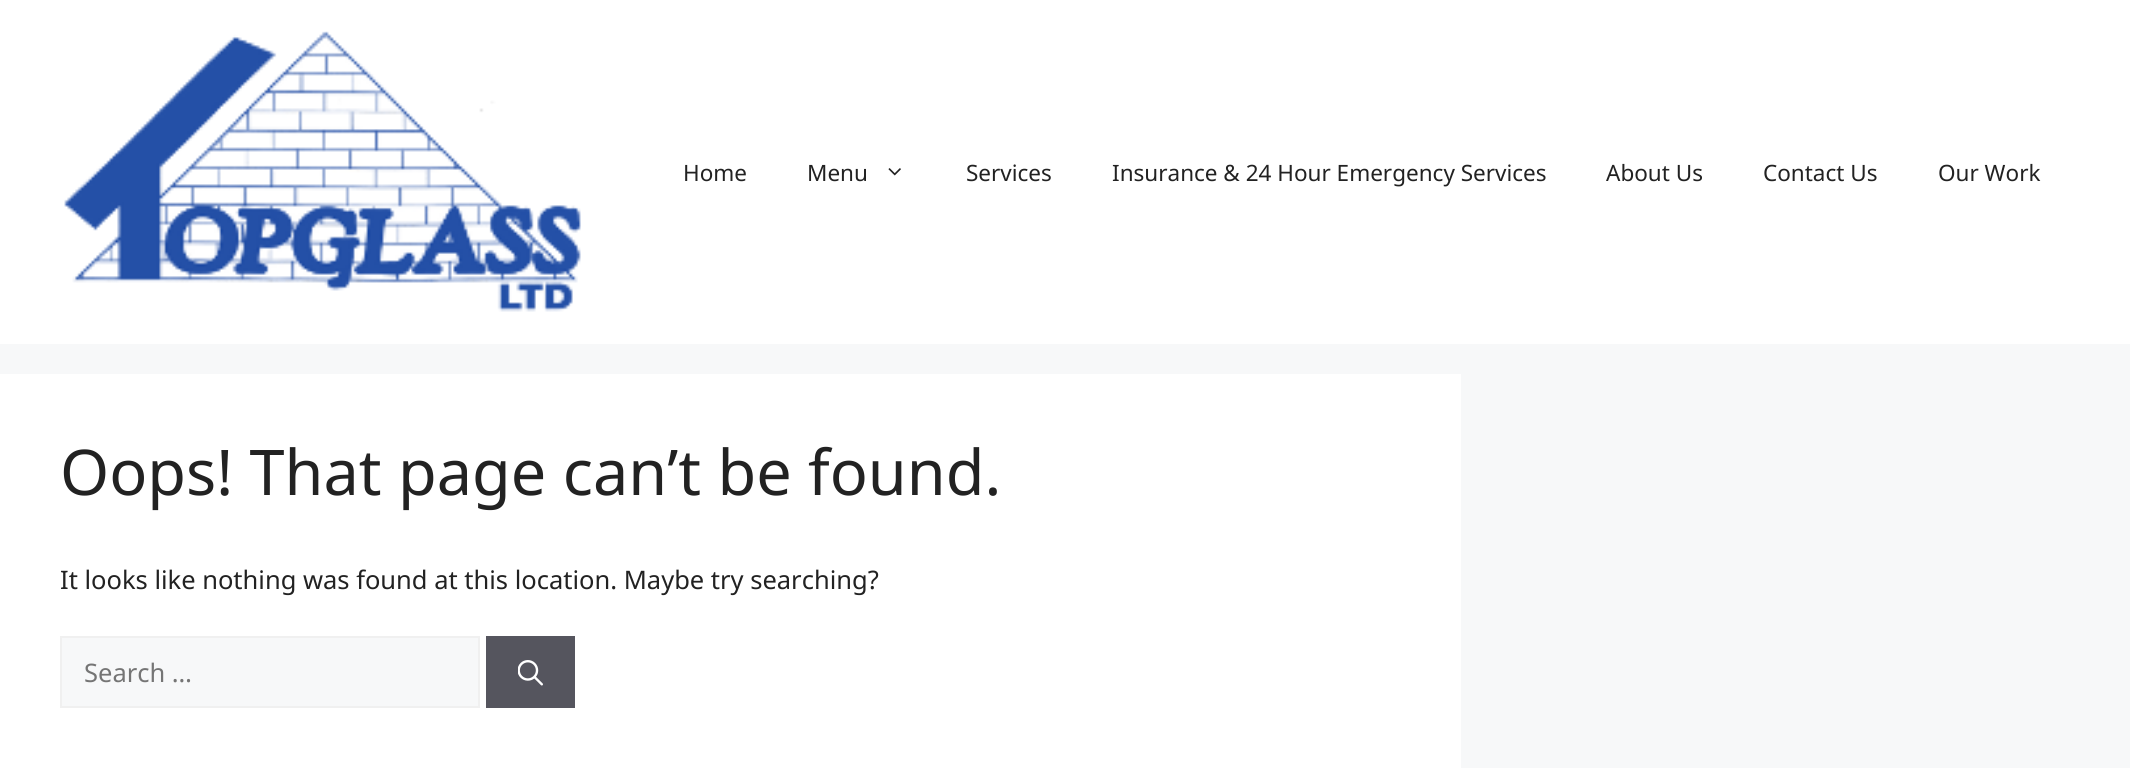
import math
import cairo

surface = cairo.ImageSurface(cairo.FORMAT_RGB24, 2130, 768)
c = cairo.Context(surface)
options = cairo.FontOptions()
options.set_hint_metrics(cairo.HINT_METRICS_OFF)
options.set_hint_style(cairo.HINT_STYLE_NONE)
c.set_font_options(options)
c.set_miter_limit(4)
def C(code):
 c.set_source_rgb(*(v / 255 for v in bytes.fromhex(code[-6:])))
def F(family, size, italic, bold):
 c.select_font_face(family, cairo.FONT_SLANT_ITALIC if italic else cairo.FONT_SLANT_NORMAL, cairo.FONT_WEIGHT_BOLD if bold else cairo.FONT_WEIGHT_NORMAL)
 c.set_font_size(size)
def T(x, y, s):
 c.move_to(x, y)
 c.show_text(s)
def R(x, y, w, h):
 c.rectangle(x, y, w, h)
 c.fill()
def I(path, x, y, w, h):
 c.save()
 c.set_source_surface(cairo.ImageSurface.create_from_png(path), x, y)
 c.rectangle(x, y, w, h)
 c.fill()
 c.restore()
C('f7f8f9')
c.paint()
C('ffffff')
R(0,0,2130,344)
I('1.png',64,31,517,281)
F('Noto Sans',22.5,0,0)
C('222222')
T(683,181,'Home')
T(807,181,'Menu')
I('2.png',888,168,13,8)
T(966,181,'Services')
T(1112,181,'Insurance & 24 Hour Emergency Services')
T(1606,181,'About Us')
T(1763,181,'Contact Us')
T(1938,181,'Our Work')
C('ffffff')
R(0,374,1461,394)
F('Noto Sans',63,0,0)
C('222222')
T(60,495,'Oops! That page can’t be found.')
F('Noto Sans',25.5,0,0)
T(60,589,'It looks like nothing was found at this location. Maybe try searching?')
C('f7f8f9')
c.rectangle(61,637,418,70)
c.fill_preserve()
C('f0f0f0')
c.stroke()
C('757575')
T(84,682,'Search …')
C('55555e')
R(486,636,89,72)
I('3.png',518,660,25,26)
surface.write_to_png('o.png')
